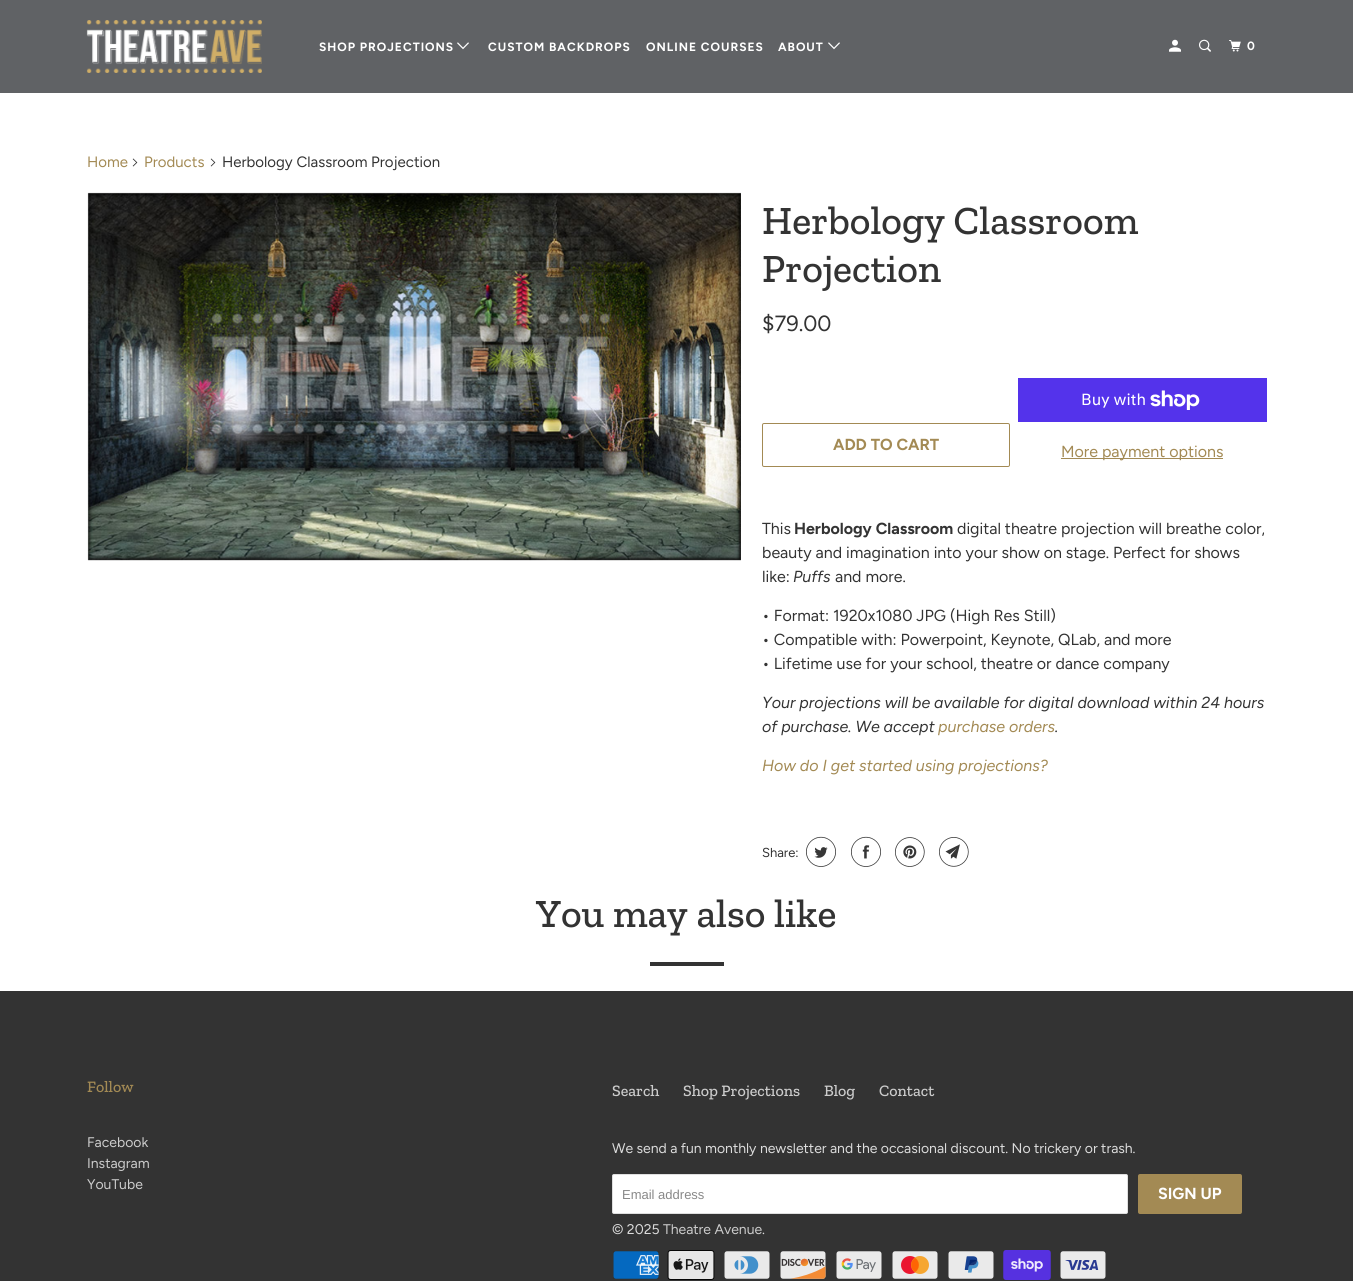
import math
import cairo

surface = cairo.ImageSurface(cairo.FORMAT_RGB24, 1353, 1281)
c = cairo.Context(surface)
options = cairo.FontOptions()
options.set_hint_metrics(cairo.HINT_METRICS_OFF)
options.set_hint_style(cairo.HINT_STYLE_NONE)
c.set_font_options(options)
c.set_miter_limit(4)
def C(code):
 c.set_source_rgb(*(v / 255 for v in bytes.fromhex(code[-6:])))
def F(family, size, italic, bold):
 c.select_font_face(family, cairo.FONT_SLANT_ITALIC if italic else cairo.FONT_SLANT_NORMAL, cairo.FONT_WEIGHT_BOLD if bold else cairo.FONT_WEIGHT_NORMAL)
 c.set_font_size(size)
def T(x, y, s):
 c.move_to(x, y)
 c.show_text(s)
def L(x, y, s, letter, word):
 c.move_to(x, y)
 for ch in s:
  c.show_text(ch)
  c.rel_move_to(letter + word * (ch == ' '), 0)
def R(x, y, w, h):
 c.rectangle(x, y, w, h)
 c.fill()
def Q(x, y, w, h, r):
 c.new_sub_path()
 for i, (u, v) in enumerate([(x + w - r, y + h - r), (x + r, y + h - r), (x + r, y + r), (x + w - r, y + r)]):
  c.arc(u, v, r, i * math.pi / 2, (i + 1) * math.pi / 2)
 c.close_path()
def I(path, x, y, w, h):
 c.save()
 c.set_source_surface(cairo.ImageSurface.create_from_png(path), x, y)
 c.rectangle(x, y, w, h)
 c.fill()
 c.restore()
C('333333')
c.paint()
C('ffffff')
R(0,93,1353,898)
C('606265')
R(0,0,1353,93)
I('1.png',86,20,176,53)
F('Figtree',12,0,1)
C('ffffff')
L(319,51,'SHOP PROJECTIONS',1,0)
I('2.png',457,42,12,8)
L(488,51,'CUSTOM BACKDROPS',1,0)
L(646,51,'ONLINE COURSES',1,0)
L(778,51,'ABOUT',1,0)
I('2.png',828,42,12,8)
I('3.png',1169,39,12,13)
I('4.png',1199,39,12,13)
I('5.png',1229,40,12,12)
L(1247,50,'0',1,0)
F('Figtree',15,0,0)
C('a38a54')
T(87,167,'Home')
I('6.png',132,158,6,9)
T(144,167,'Products')
I('6.png',210,158,6,9)
C('333333')
T(222,167,'Herbology Classroom Projection')
I('7.png',87,192,654,369)
F('Zilla Slab Medium',40,0,0)
T(762,234,'Herbology Classroom')
T(762,282,'Projection')
F('Figtree',22,0,0)
T(762,331,'$79.00')
Q(762.5,423.5,247,43,1.5)
C('a38a54')
c.set_line_width(1)
c.stroke()
F('Figtree',16,0,1)
T(833,450,'ADD TO CART')
C('5433eb')
R(1018,378,249,44)
F('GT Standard',16,0,0)
C('ffffff')
T(1081,405,'Buy with')
I('8.png',1150,390,50,20)
C('a38a54')
R(1061,458,162,1)
F('Figtree',16,0,0)
T(1061,457,'More payment options')
C('333333')
T(762,534,'This')
F('Figtree',16,0,1)
T(794,534,'Herbology Classroom')
F('Figtree',16,0,0)
T(957,534,'digital theatre projection will breathe color,')
T(762,558,'beauty and imagination into your show on stage. Perfect for shows')
T(762,582,'like:')
F('Figtree',16,1,0)
T(793,582,'Puffs')
F('Figtree',16,0,0)
T(835,582,'and more.')
T(762,621,'• Format: 1920x1080 JPG (High Res Still)')
T(762,645,'• Compatible with: Powerpoint, Keynote, QLab, and more')
T(762,669,'• Lifetime use for your school, theatre or dance company')
F('Figtree',16,1,0)
T(762,708,'Your projections will be available for digital download within 24 hours')
T(762,732,'of purchase. We accept')
C('a38a54')
T(938,732,'purchase orders')
C('333333')
T(1055,732,'.')
C('a38a54')
T(762,771,'How do I get started using projections?')
F('Figtree',13,0,0)
C('333333')
T(762,857,'Share:')
I('9.png',806,836,30,31)
I('10.png',851,836,30,31)
I('11.png',895,837,30,30)
I('12.png',939,837,30,30)
F('Zilla Slab Medium',40,0,0)
T(536,927,'You may also like')
R(650,962,74,4)
F('Zilla Slab Medium',16,0,0)
C('a38a54')
T(87,1092,'Follow')
F('Figtree',14,0,0)
C('cccccc')
T(87,1147,'Facebook')
T(87,1168,'Instagram')
T(87,1189,'YouTube')
F('Zilla Slab Medium',16,0,0)
T(612,1096,'Search')
T(683,1096,'Shop Projections')
T(824,1096,'Blog')
T(879,1096,'Contact')
F('Figtree',14,0,0)
C('dcdcdc')
T(612,1153,'We send a fun monthly newsletter and the occasional discount. No trickery or trash.')
C('ffffff')
Q(612.5,1174.5,515,39,1.5)
c.fill_preserve()
C('dfdfdf')
c.stroke()
F('Liberation Sans',13,0,0)
C('888888')
T(622,1199,'Email address')
C('a38a54')
Q(1138,1174,104,40,2)
c.fill()
F('Figtree',16,0,1)
C('ffffff')
T(1158,1199,'SIGN UP')
F('Figtree',14,0,0)
C('dcdcdc')
T(612,1234,'© 2025')
C('cccccc')
T(663,1234,'Theatre Avenue')
C('dcdcdc')
T(762,1234,'.')
I('13.png',613,1251,46,28)
I('14.png',667,1250,48,30)
I('15.png',724,1251,46,28)
I('16.png',780,1251,46,28)
I('17.png',836,1251,46,28)
I('18.png',892,1251,46,28)
I('19.png',948,1251,46,28)
I('20.png',1003,1250,48,30)
I('21.png',1060,1251,46,28)
surface.write_to_png('o.png')
